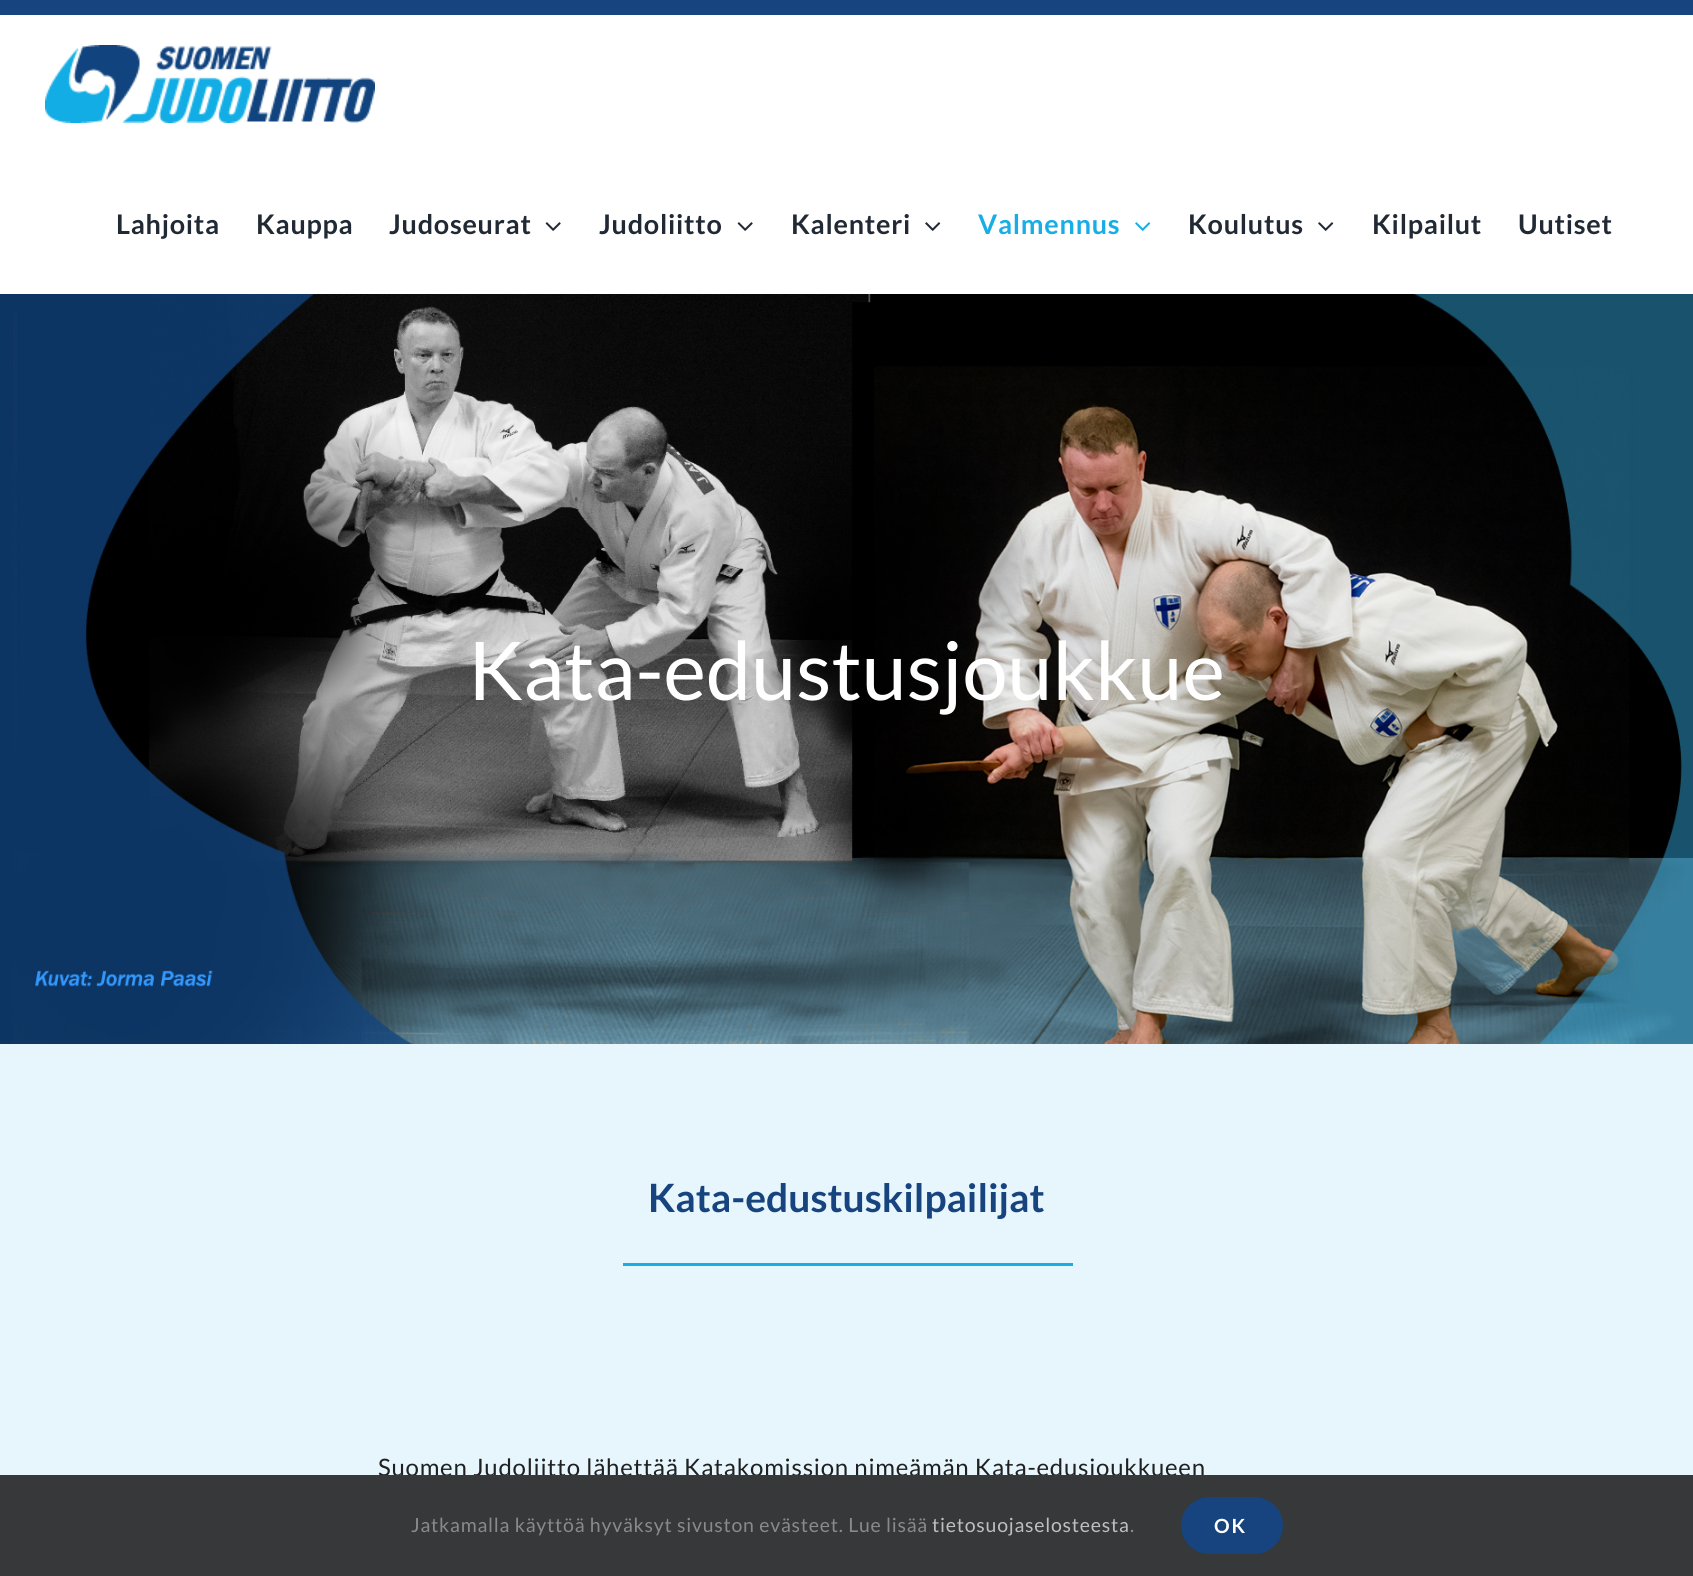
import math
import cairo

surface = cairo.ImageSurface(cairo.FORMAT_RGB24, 1693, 1576)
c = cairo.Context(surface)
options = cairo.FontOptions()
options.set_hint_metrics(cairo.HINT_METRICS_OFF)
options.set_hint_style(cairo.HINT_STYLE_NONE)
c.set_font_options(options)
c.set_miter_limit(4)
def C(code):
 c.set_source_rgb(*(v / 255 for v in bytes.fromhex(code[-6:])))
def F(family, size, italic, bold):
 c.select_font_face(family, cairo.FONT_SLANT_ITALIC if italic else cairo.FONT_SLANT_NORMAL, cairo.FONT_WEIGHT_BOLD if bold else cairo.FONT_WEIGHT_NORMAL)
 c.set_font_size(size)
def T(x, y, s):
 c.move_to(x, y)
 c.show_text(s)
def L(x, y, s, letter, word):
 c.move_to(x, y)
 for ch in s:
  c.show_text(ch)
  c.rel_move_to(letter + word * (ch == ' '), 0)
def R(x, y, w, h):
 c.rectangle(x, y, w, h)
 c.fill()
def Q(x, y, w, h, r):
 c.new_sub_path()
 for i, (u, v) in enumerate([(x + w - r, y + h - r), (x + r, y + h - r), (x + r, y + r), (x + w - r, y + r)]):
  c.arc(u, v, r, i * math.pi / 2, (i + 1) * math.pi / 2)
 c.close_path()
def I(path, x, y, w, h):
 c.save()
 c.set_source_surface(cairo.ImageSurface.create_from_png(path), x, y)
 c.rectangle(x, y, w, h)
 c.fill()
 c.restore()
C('ffffff')
c.paint()
C('17447e')
R(0,0,1693,15)
I('1.png',45,45,330,78)
F('Lato',27,0,1)
C('212934')
L(116,234,'Lahjoita',.75,0)
L(256,234,'Kauppa',.75,0)
L(389,234,'Judoseurat',.75,0)
I('2.png',545,222,16,9)
L(599,234,'Judoliitto',.75,0)
I('2.png',737,222,16,9)
L(791,234,'Kalenteri',.75,0)
I('3.png',925,222,16,9)
C('18ade5')
L(978,234,'Valmennus',.75,0)
I('4.png',1135,222,16,9)
C('212934')
L(1188,234,'Koulutus',.75,0)
I('3.png',1318,222,16,9)
L(1372,234,'Kilpailut',.75,0)
L(1518,234,'Uutiset',.75,0)
I('5.png',0,294,1693,750)
F('Lato',81,0,0)
C('ffffff')
T(468,700,'Kata-edustusjoukkue')
C('e7f6fc')
R(0,1044,1693,431)
F('Lato',39,0,1)
C('17447e')
T(648,1212,'Kata-edustuskilpailijat')
C('18ade5')
R(623,1263,450,3)
F('Lato',24,0,0)
C('202020')
L(378,1476,'Suomen Judoliitto lähettää Katakomission nimeämän Kata-edusjoukkueen',.75,0)
C('363839')
R(0,1475,1693,101)
F('Lato',19.5,0,0)
C('8c8989')
L(411,1532,'Jatkamalla käyttöä hyväksyt sivuston evästeet. Lue lisää',.75,0)
C('bfbfbf')
L(932,1532,'tietosuojaselosteesta',.75,0)
C('8c8989')
L(1130,1532,'.',.75,0)
C('17447e')
Q(1181,1497,102,57,28.5)
c.fill()
F('Lato',19.5,0,1)
C('ffffff')
L(1214,1533,'OK',2,0)
surface.write_to_png('o.png')
